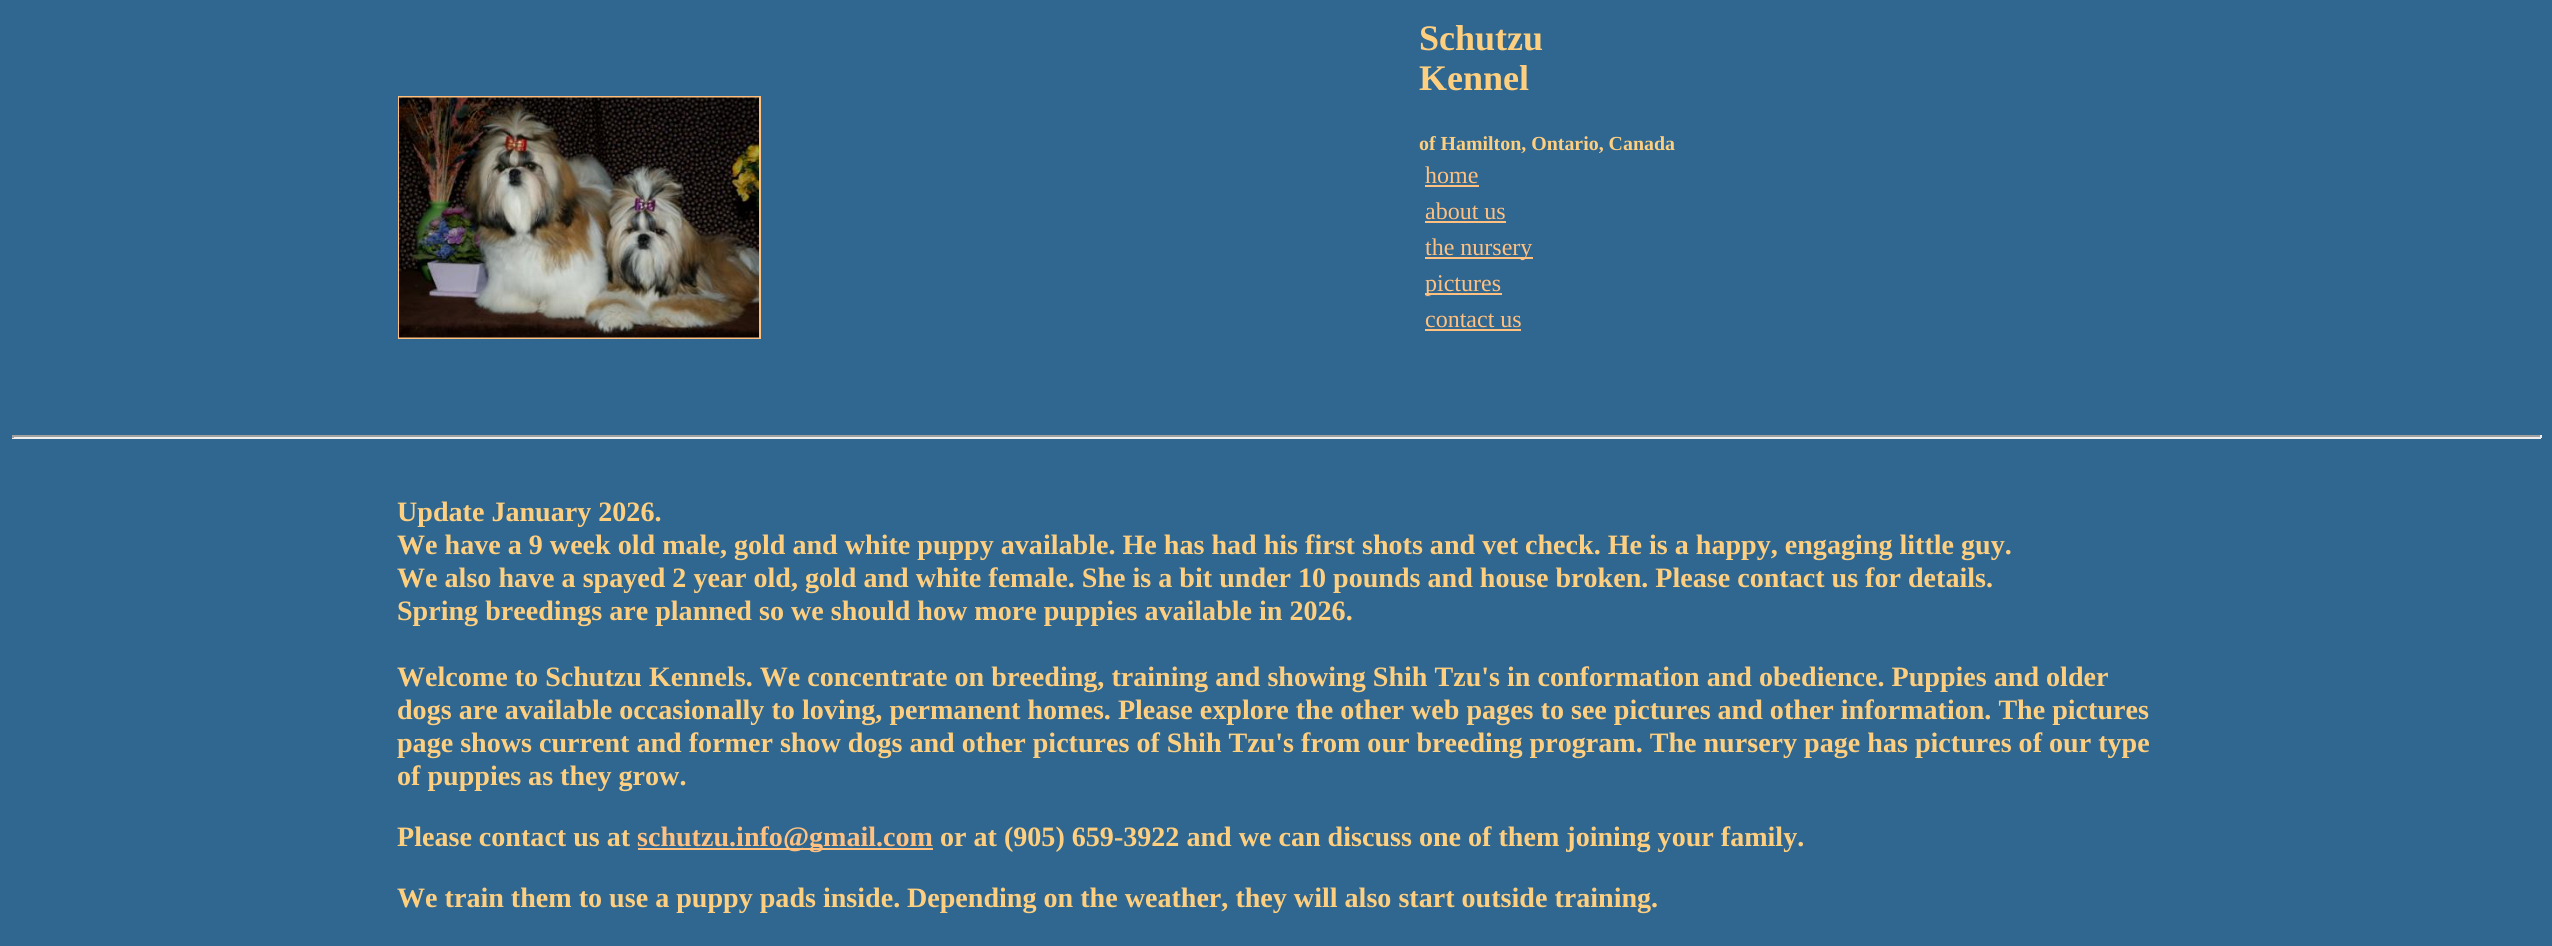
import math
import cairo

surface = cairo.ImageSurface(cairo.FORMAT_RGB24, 2552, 946)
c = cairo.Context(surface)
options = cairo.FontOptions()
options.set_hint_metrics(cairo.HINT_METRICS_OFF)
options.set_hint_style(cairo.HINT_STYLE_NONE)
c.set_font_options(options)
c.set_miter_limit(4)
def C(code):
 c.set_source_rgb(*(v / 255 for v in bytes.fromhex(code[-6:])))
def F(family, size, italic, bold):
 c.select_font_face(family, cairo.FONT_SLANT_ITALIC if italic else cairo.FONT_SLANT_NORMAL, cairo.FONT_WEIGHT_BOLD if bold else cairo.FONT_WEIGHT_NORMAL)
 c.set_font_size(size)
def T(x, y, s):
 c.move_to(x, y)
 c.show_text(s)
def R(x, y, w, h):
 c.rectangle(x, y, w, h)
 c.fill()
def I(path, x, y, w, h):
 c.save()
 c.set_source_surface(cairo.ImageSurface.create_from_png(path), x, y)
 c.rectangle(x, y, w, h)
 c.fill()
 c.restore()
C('2f6790')
c.paint()
c.rectangle(399,97,361,241)
C('ffc080')
c.stroke()
I('1.png',399,97,360,241)
F('Liberation Serif',36,0,1)
C('ffcf80')
T(1419,50,'Schutzu')
T(1419,90,'Kennel')
F('Liberation Serif',19.9,0,1)
T(1419,150,'of Hamilton, Ontario, Canada')
F('Liberation Serif',24,0,0)
C('ffc080')
T(1425,183,'home')
R(1425,185,54,2)
T(1425,219,'about us')
R(1425,221,81,2)
R(1425,257,108,2)
T(1425,255,'the nursery')
R(1425,293,77,2)
T(1425,291,'pictures')
T(1425,327,'contact us')
R(1425,329,96,2)
C('9f9f9f')
R(12,435,2529,2)
C('eeeeee')
R(2540,435,2,3)
R(12,437,2529,2)
C('9f9f9f')
R(12,435,2,3)
F('Liberation Serif',28.08,0,1)
C('ffcf80')
T(397,521,'Update January 2026.')
T(397,554,'We have a 9 week old male, gold and white puppy available. He has had his first shots and vet check. He is a happy, engaging little guy.')
T(397,587,'We also have a spayed 2 year old, gold and white female. She is a bit under 10 pounds and house broken. Please contact us for details.')
T(397,620,'Spring breedings are planned so we should how more puppies available in 2026.')
T(397,686,'Welcome to Schutzu Kennels. We concentrate on breeding, training and showing Shih Tzu\'s in conformation and obedience. Puppies and older')
T(397,719,'dogs are available occasionally to')
T(802,719,'loving, permanent homes. Please explore the other web pages to see pictures and other information. The pictures')
T(397,752,'page shows current and former show dogs and other pictures of Shih Tzu\'s from our breeding program. The nursery page has pictures of our type')
T(397,785,'of puppies as they grow.')
T(397,846,'Please contact us at')
C('ffc080')
R(638,848,295,2)
T(637,846,'schutzu.info@gmail.com')
C('ffcf80')
T(940,846,'or at (905) 659-3922 and we can discuss one of them joining your family.')
T(397,907,'We train them to use a puppy pads inside.')
T(907,907,'Depending on the weather, they will also start outside training.')
surface.write_to_png('o.png')
